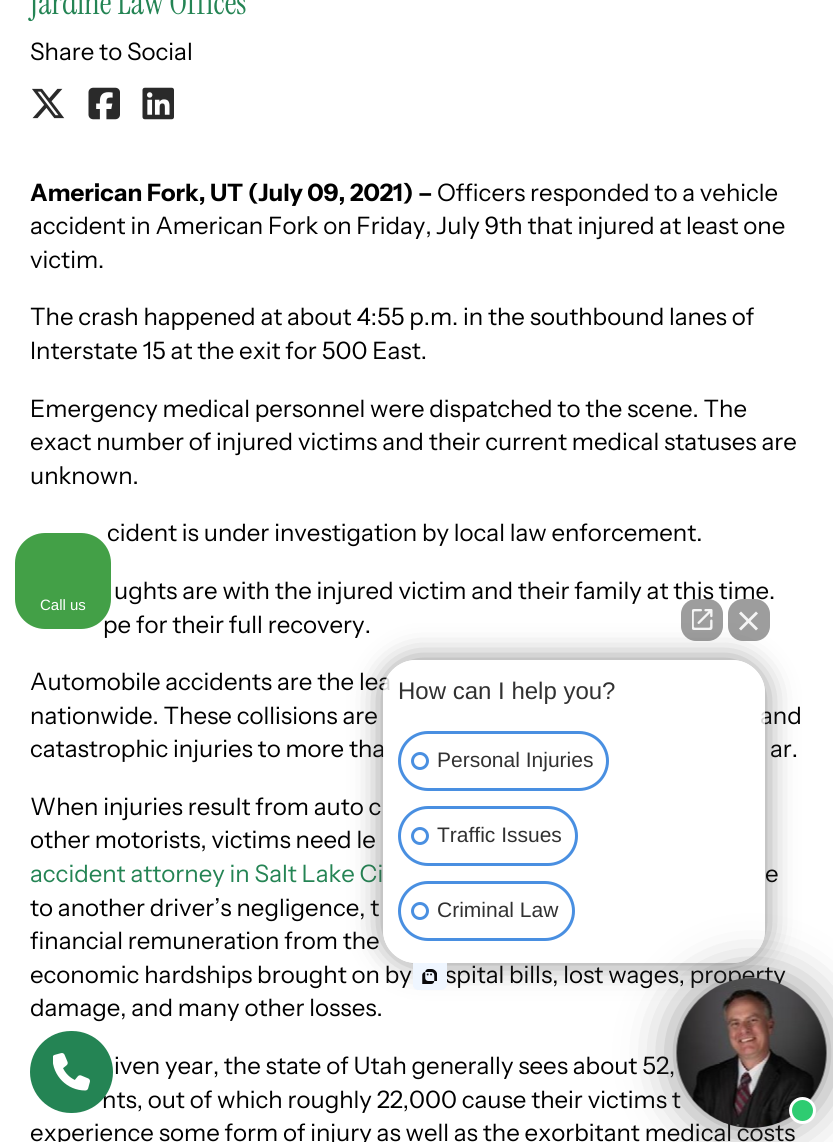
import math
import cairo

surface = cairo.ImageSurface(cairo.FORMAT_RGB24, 833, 1142)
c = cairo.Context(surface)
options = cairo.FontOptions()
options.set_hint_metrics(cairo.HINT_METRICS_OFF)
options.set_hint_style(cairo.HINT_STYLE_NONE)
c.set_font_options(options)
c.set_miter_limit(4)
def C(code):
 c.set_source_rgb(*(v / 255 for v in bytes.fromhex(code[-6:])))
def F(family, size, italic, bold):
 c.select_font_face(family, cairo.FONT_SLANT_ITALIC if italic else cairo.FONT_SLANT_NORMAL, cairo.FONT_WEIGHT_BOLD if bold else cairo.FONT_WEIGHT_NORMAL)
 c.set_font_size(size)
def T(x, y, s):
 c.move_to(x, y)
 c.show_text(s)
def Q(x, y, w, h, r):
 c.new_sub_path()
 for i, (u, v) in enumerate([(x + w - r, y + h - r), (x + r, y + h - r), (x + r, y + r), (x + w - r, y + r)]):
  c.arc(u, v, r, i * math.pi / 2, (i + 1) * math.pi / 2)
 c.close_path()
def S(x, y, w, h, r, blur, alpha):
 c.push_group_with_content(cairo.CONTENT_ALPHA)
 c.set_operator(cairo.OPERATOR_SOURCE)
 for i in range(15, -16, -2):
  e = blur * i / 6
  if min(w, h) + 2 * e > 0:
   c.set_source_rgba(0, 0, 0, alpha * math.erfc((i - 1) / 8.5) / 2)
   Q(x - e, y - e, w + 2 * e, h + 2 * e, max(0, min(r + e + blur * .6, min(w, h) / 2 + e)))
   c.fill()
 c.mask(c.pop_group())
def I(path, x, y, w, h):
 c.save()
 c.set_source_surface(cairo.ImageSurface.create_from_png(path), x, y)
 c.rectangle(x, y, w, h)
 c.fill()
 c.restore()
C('ffffff')
c.paint()
F('Instrument Serif',33,0,0)
C('248454')
T(30,14,'Jardine Law Offices')
F('Instrument Sans',24,0,0)
C('000000')
T(30,60,'Share to Social')
I('1.png',32,88,33,31)
I('2.png',88,87,32,33)
I('3.png',142,87,32,33)
F('Instrument Sans',24,0,1)
T(30,201,'American Fork, UT (July 09, 2021) –')
F('Instrument Sans',24,0,0)
T(437,201,'Officers responded to a vehicle')
T(30,234,'accident in American Fork on Friday, July 9th that injured at least one')
T(30,268,'victim.')
T(30,325,'The crash happened at about 4:55 p.m. in the southbound lanes of')
T(30,359,'Interstate 15 at the exit for 500 East.')
T(30,417,'Emergency medical personnel were dispatched to the scene. The')
T(30,450,'exact number of injured victims and their current medical statuses are')
T(30,484,'unknown.')
T(107,541,'cident is under investigation by local law enforcement.')
T(114,599,'ughts are with the injured victim and their family at this time.')
T(103,633,'pe for their full recovery.')
T(30,690,'Automobile accidents are the lea')
T(30,724,'nationwide. These collisions are')
T(760,724,'and')
T(30,757,'catastrophic injuries to more tha')
T(770,757,'ar.')
T(30,815,'When injuries result from auto c')
T(30,848,'other motorists, victims need le')
C('248454')
T(30,882,'accident attorney in Salt Lake Ci')
C('000000')
T(765,882,'e')
T(30,916,'to another driver’s negligence, t')
T(30,949,'financial remuneration from the')
T(30,983,'economic hardships brought on by')
T(445,983,'spital bills, lost wages, property')
T(30,1016,'damage, and many other losses.')
T(114,1074,'iven year, the state of Utah generally sees about 52,')
T(102,1108,'nts, out of which roughly 22,000 cause their victims t')
T(30,1141,'experience some form of injury as well as the exorbitant medical costs')
C('43a047')
Q(15,533,96,96,30)
c.fill()
F('Liberation Sans',15,0,0)
C('ffffff')
T(40,610,'Call us')
c.save()
c.set_fill_rule(cairo.FILL_RULE_EVEN_ODD)
c.new_path()
c.move_to(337,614)
c.line_to(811,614)
c.line_to(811,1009)
c.line_to(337,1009)
c.close_path()
c.move_to(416,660)
c.line_to(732,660)
c.curve_to(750,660,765,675,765,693)
c.line_to(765,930)
c.curve_to(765,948,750,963,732,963)
c.line_to(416,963)
c.curve_to(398,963,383,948,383,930)
c.line_to(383,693)
c.curve_to(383,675,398,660,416,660)
c.close_path()
c.clip()
C('3c3c3c')
S(383,660,382,303,33,15,.6)
c.restore()
c.set_source_rgba(1,1,1,0.85)
Q(383,660,382,303,33)
c.fill()
c.set_source_rgba(0.153,0.153,0.153,0.45)
Q(681,599,42,42,15)
c.fill()
I('4.png',692,609,21,21)
Q(728,599,42,42,15)
c.fill()
C('f5f5f5')
c.new_path()
c.move_to(739,613.5)
c.line_to(741,611.5)
c.line_to(758,628.5)
c.line_to(756,630.5)
c.close_path()
c.fill()
c.new_path()
c.move_to(756,611.5)
c.line_to(758,613.5)
c.line_to(741,630.5)
c.line_to(739,628.5)
c.close_path()
c.fill()
F('Liberation Sans',24,0,0)
C('313131')
T(398,699,'How can I help you?')
Q(399.5,732.5,208,57,28.5)
C('498fe1')
c.set_line_width(3)
c.stroke()
c.arc(420,761,7.5,0,2 * math.pi)
c.stroke()
F('Liberation Sans',21,0,0)
C('313131')
T(437,767,'Personal Injuries')
Q(399.5,807.5,177,57,28.5)
C('498fe1')
c.stroke()
c.arc(420,836,7.5,0,2 * math.pi)
c.stroke()
C('313131')
T(437,842,'Traffic Issues')
Q(399.5,882.5,174,57,28.5)
C('498fe1')
c.stroke()
c.arc(420,911,7.5,0,2 * math.pi)
c.stroke()
C('313131')
T(437,917,'Criminal Law')
I('5.png',413,963,34,27)
C('3c3c3c')
S(677,978,150,150,75,26,.6)
I('6.png',676,978,151,150)
C('2ecc71')
c.arc(802.5,1110.5,12,0,2 * math.pi)
c.fill_preserve()
C('ffffff')
c.stroke()
C('248454')
Q(30,1031,83,82,41)
c.fill()
I('7.png',53,1053,37,38)
surface.write_to_png('o.png')
